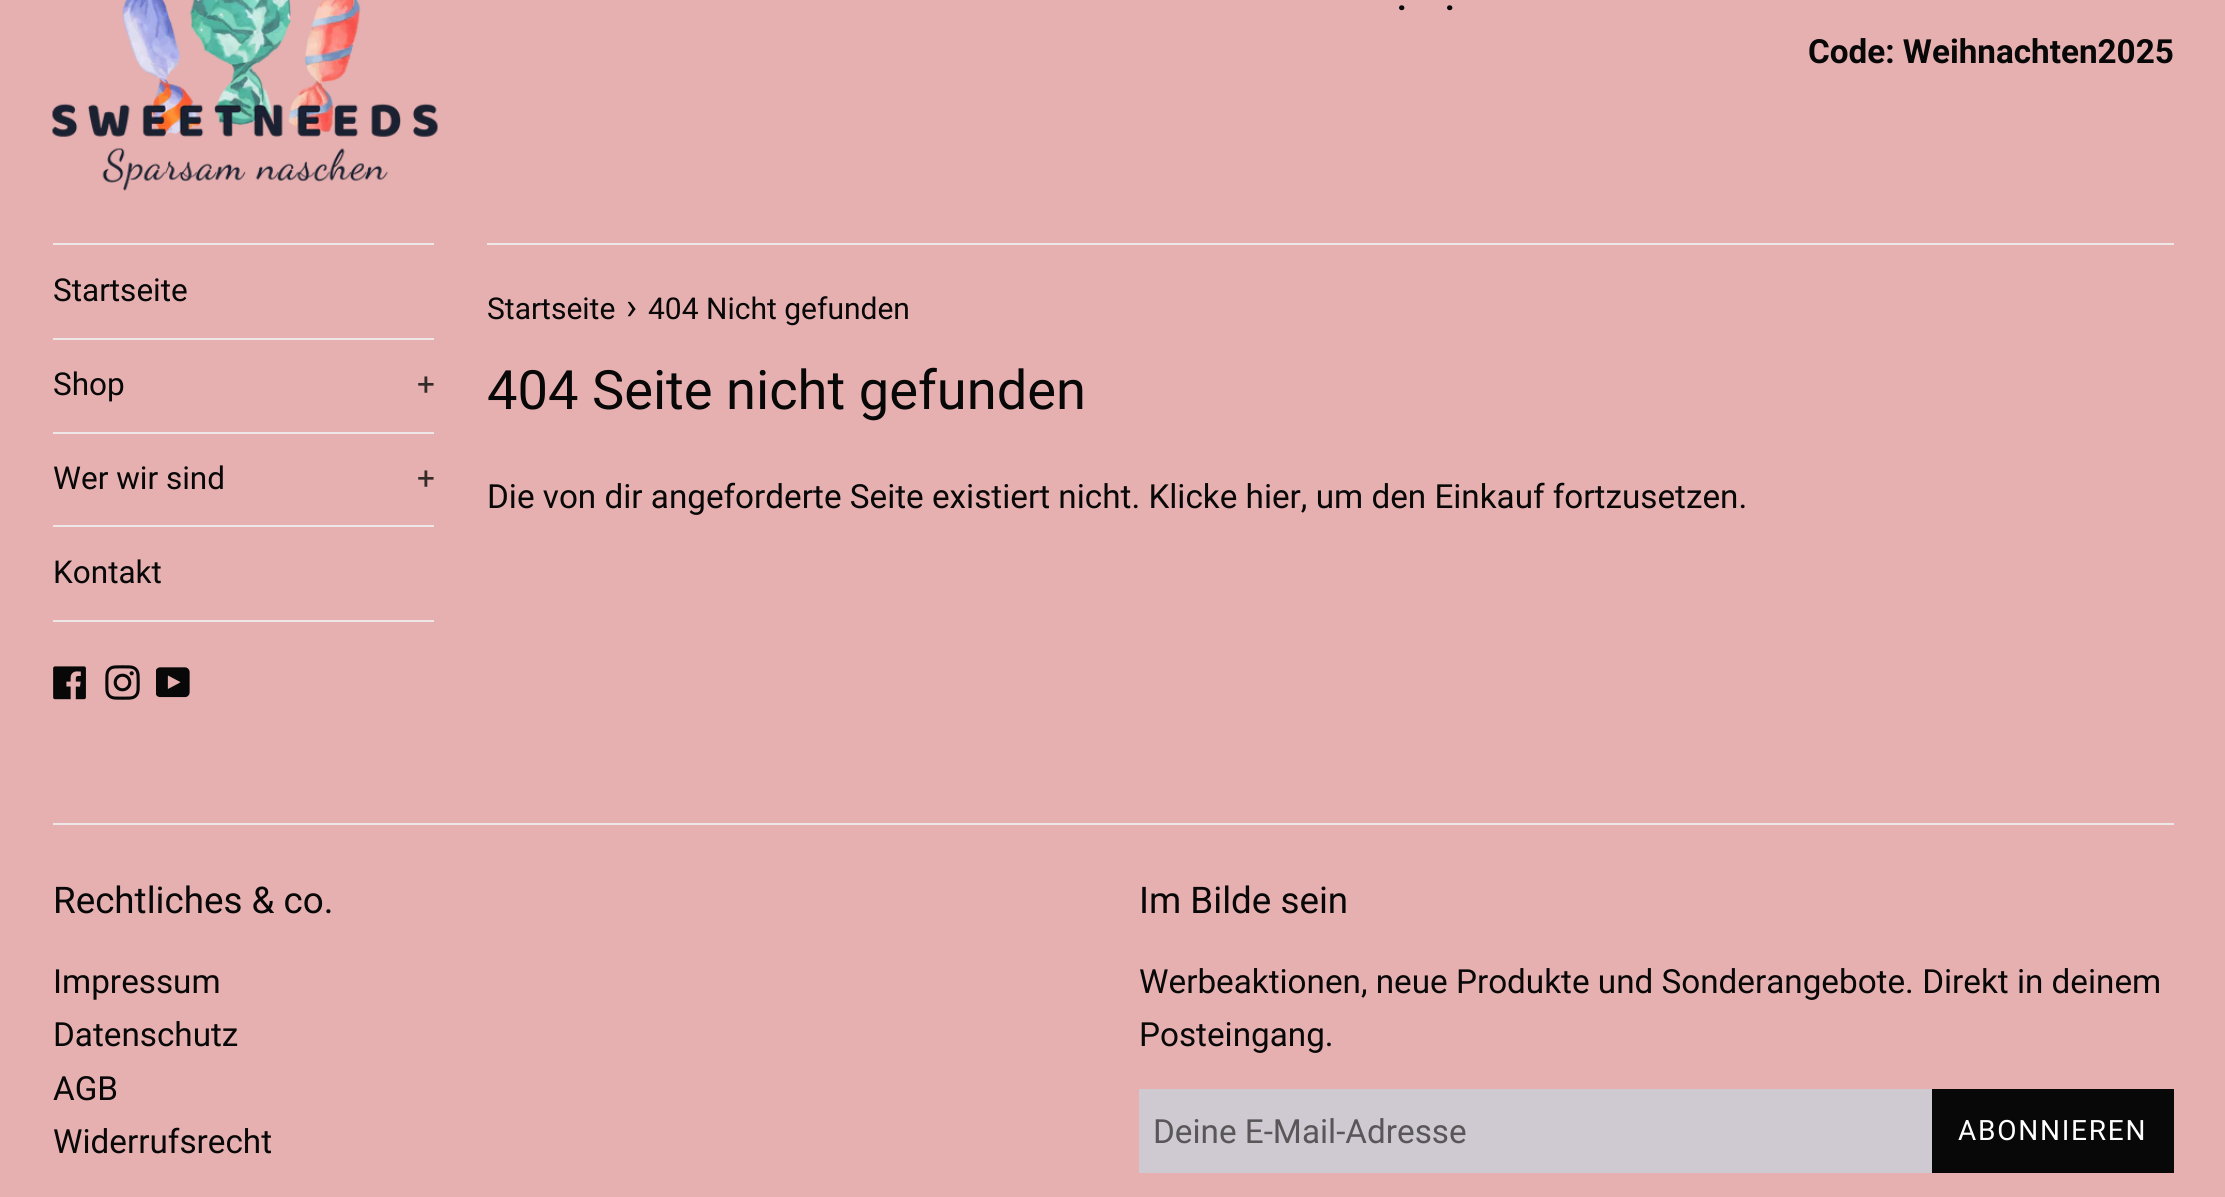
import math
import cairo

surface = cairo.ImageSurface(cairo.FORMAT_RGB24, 2225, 1197)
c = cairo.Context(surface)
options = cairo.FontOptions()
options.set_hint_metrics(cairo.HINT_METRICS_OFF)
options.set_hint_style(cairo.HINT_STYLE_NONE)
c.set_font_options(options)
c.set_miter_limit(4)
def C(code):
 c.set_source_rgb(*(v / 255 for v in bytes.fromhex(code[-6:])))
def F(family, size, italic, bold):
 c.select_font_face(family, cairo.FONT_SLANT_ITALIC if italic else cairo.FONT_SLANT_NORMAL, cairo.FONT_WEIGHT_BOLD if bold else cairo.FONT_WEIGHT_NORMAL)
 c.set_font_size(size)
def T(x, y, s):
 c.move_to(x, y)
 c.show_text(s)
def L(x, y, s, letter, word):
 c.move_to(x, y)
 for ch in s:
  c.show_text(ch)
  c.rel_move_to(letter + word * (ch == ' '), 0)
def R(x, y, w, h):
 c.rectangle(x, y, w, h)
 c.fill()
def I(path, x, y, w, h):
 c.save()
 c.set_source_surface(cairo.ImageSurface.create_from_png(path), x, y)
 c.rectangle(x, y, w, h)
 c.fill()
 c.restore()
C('e7b0b0')
c.paint()
I('1.png',52,0,386,191)
F('Roboto',33.25,0,1)
C('080808')
T(1397,10,'.')
T(1445,10,'.')
T(1808,63,'Code: Weihnachten2025')
C('ede8e7')
R(53,243,381,2)
R(53,338,381,2)
F('Roboto',31.5,0,0)
C('080808')
T(53,301,'Startseite')
C('ede8e7')
R(53,432,381,2)
C('080808')
T(53,395,'Shop')
C('352a2a')
T(417,395,'+')
C('ede8e7')
R(53,525,381,2)
C('080808')
T(53,489,'Wer wir sind')
C('352a2a')
T(417,489,'+')
C('ede8e7')
R(53,620,381,2)
C('080808')
T(53,583,'Kontakt')
I('2.png',53,666,33,34)
I('3.png',105,665,35,35)
I('4.png',156,667,34,31)
C('ede8e7')
R(487,243,1687,2)
F('Roboto',30,0,0)
C('080808')
T(487,319,'Startseite')
F('Roboto',37,0,0)
T(626,319,'›')
F('Roboto',30,0,0)
T(648,319,'404 Nicht gefunden')
F('Roboto',54.25,0,0)
T(487,409,'404 Seite nicht gefunden')
F('Roboto',33.25,0,0)
T(487,508,'Die von dir angeforderte Seite existiert nicht. Klicke hier, um den Einkauf fortzusetzen.')
C('ede8e7')
R(53,823,2121,2)
F('Roboto',36.75,0,0)
C('080808')
T(53,913,'Rechtliches & co.')
F('Roboto',33.25,0,0)
T(53,993,'Impressum')
T(53,1046,'Datenschutz')
T(53,1100,'AGB')
T(53,1153,'Widerrufsrecht')
F('Roboto',36.75,0,0)
T(1139,913,'Im Bilde sein')
F('Roboto',33.25,0,0)
T(1139,993,'Werbeaktionen, neue Produkte und Sonderangebote. Direkt in deinem')
T(1139,1046,'Posteingang.')
C('cfcad1')
R(1139,1089,793,84)
C('585658')
T(1153,1143,'Deine E-Mail-Adresse')
C('080808')
R(1932,1089,242,84)
F('Roboto',28,0,0)
C('ffffff')
L(1958,1140,'ABONNIEREN',1.75,0)
surface.write_to_png('o.png')
